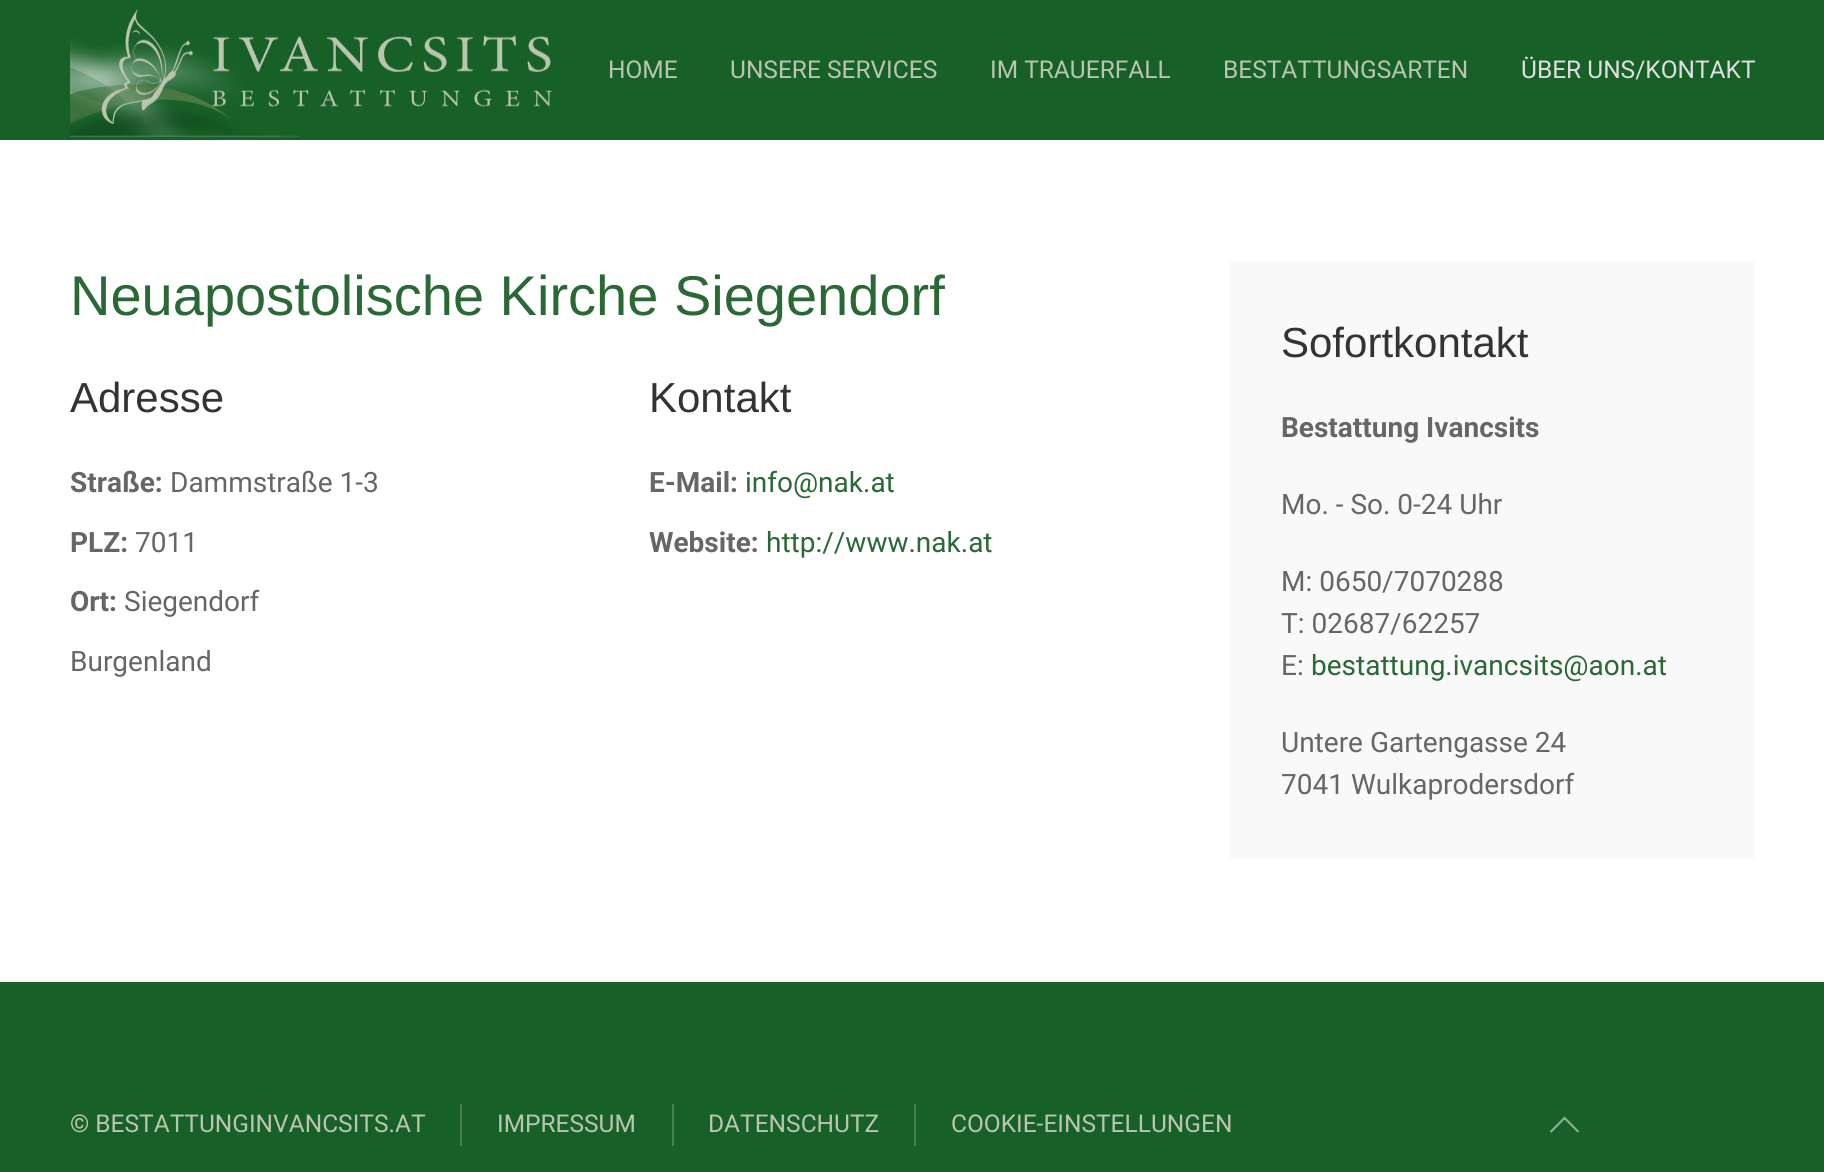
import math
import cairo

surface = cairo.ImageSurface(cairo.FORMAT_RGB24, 1824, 1172)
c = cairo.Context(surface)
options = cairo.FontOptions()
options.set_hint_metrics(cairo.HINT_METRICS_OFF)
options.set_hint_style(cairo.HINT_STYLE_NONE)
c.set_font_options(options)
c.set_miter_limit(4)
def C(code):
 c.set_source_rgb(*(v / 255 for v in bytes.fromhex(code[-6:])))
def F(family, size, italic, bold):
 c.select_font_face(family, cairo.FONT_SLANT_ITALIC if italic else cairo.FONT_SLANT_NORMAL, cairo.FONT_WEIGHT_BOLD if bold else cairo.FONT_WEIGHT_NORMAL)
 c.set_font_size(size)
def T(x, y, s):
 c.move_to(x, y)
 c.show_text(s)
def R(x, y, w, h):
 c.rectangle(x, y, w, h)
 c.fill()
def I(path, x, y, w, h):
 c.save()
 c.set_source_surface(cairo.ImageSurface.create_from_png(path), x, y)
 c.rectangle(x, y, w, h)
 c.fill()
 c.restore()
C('ffffff')
c.paint()
C('176128')
R(0,0,1824,140)
I('1.png',70,8,482,129)
F('Roboto',24.5,0,0)
C('b9c5af')
T(608,78,'HOME')
T(730,78,'UNSERE SERVICES')
T(990,78,'IM TRAUERFALL')
T(1223,78,'BESTATTUNGSARTEN')
C('e0dede')
T(1521,78,'ÜBER UNS/KONTAKT')
F('Liberation Sans',56,0,0)
C('2a6936')
T(70,315,'Neuapostolische Kirche Siegendorf')
F('Liberation Sans',42,0,0)
C('333333')
T(70,412,'Adresse')
F('Roboto',28,0,1)
C('666666')
T(70,492,'Straße:')
F('Roboto',28,0,0)
T(170,492,'Dammstraße 1-3')
F('Roboto',28,0,1)
T(70,552,'PLZ:')
F('Roboto',28,0,0)
T(135,552,'7011')
F('Roboto',28,0,1)
T(70,611,'Ort:')
F('Roboto',28,0,0)
T(124,611,'Siegendorf')
T(70,671,'Burgenland')
F('Liberation Sans',42,0,0)
C('333333')
T(649,412,'Kontakt')
F('Roboto',28,0,1)
C('666666')
T(649,492,'E-Mail:')
F('Roboto',28,0,0)
C('2a6936')
T(745,492,'info@nak.at')
F('Roboto',28,0,1)
C('666666')
T(649,552,'Website:')
F('Roboto',28,0,0)
C('2a6936')
T(766,552,'http://www.nak.at')
C('f9f9f9')
R(1229,261,526,598)
F('Liberation Sans',42,0,0)
C('333333')
T(1281,357,'Sofortkontakt')
F('Roboto',28,0,1)
C('666666')
T(1281,437,'Bestattung Ivancsits')
F('Roboto',28,0,0)
T(1281,514,'Mo. - So. 0-24 Uhr')
T(1281,591,'M: 0650/7070288')
T(1281,633,'T: 02687/62257')
T(1281,675,'E:')
C('2a6936')
T(1311,675,'bestattung.ivancsits@aon.at')
C('666666')
T(1281,752,'Untere Gartengasse 24')
T(1281,794,'7041 Wulkaprodersdorf')
C('176128')
R(0,982,1824,190)
F('Roboto',24.5,0,0)
C('b9c5af')
T(70,1132,'© BESTATTUNGINVANCSITS.AT')
C('458153')
R(460,1104,2,42)
C('b9c5af')
T(497,1132,'IMPRESSUM')
C('458153')
R(672,1104,2,42)
C('b9c5af')
T(708,1132,'DATENSCHUTZ')
C('458153')
R(914,1104,2,42)
C('b9c5af')
T(951,1132,'COOKIE-EINSTELLUNGEN')
c.new_path()
c.move_to(1550.5,1132)
c.line_to(1564.5,1118)
c.line_to(1578.5,1132)
C('8bb094')
c.set_line_width(2.1)
c.stroke()
surface.write_to_png('o.png')
